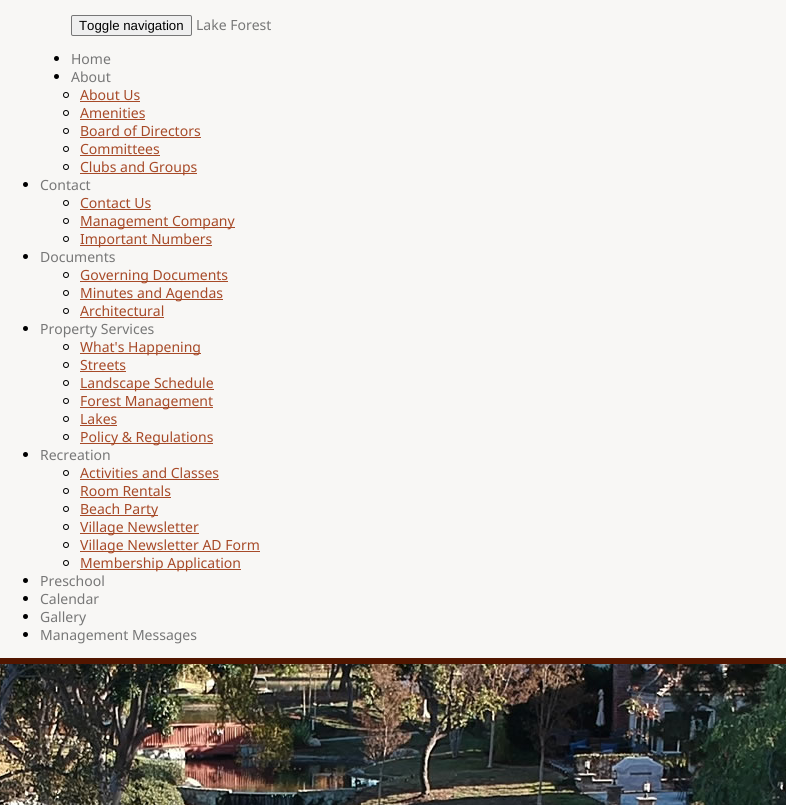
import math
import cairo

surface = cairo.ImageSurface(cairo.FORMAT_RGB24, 786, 805)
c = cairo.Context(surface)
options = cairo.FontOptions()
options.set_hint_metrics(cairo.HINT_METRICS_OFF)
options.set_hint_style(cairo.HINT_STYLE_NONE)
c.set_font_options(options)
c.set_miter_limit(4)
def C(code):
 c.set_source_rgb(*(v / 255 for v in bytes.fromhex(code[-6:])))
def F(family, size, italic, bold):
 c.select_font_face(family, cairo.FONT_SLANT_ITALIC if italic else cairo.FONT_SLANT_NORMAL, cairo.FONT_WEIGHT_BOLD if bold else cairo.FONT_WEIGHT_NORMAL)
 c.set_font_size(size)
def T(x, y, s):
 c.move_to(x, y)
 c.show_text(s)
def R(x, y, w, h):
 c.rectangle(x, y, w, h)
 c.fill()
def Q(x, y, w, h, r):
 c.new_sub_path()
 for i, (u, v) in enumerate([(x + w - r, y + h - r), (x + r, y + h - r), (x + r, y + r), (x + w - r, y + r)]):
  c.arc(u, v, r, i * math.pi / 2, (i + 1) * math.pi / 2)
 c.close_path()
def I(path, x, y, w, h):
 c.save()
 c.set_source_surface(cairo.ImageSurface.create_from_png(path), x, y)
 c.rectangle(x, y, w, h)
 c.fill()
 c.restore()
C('f8f7f5')
c.paint()
C('521600')
R(0,658,786,6)
C('efefef')
Q(71.5,15.5,120,20,1.5)
c.fill_preserve()
C('767676')
c.set_line_width(1)
c.stroke()
F('Liberation Sans',13.25,0,0)
C('000000')
T(79,30,'Toggle navigation')
F('Noto Sans',14,0,0)
C('777777')
T(196,30,'Lake Forest')
C('000000')
c.new_path()
c.arc(56.5,58.5,2.5,0,2 * math.pi)
c.fill()
C('777777')
T(71,64,'Home')
C('000000')
c.new_path()
c.arc(56.5,76.5,2.5,0,2 * math.pi)
c.fill()
C('777777')
T(71,82,'About')
c.new_path()
c.arc(66,95,2.5,0,2 * math.pi)
C('000000')
c.stroke()
C('a74a28')
T(80,100,'About Us')
R(80,101,60,1)
c.new_path()
c.arc(66,113,2.5,0,2 * math.pi)
C('000000')
c.stroke()
C('a74a28')
T(80,118,'Amenities')
R(80,119,65,1)
c.new_path()
c.arc(66,131,2.5,0,2 * math.pi)
C('000000')
c.stroke()
C('a74a28')
T(80,136,'Board of Directors')
R(80,137,121,1)
c.new_path()
c.arc(66,149,2.5,0,2 * math.pi)
C('000000')
c.stroke()
C('a74a28')
T(80,154,'Committees')
R(80,155,80,1)
c.new_path()
c.arc(66,167,2.5,0,2 * math.pi)
C('000000')
c.stroke()
C('a74a28')
R(80,173,117,1)
T(80,172,'Clubs and Groups')
C('000000')
c.new_path()
c.arc(25.5,184.5,2.5,0,2 * math.pi)
c.fill()
C('777777')
T(40,190,'Contact')
c.new_path()
c.arc(66,203,2.5,0,2 * math.pi)
C('000000')
c.stroke()
C('a74a28')
T(80,208,'Contact Us')
R(80,209,71,1)
c.new_path()
c.arc(66,221,2.5,0,2 * math.pi)
C('000000')
c.stroke()
C('a74a28')
R(80,227,155,1)
T(80,226,'Management Company')
c.new_path()
c.arc(66,239,2.5,0,2 * math.pi)
C('000000')
c.stroke()
C('a74a28')
R(80,245,132,1)
T(80,244,'Important Numbers')
C('000000')
c.new_path()
c.arc(25.5,256.5,2.5,0,2 * math.pi)
c.fill()
C('777777')
T(40,262,'Documents')
c.new_path()
c.arc(66,275,2.5,0,2 * math.pi)
C('000000')
c.stroke()
C('a74a28')
R(80,281,148,1)
T(80,280,'Governing Documents')
c.new_path()
c.arc(66,293,2.5,0,2 * math.pi)
C('000000')
c.stroke()
C('a74a28')
R(80,299,143,1)
T(80,298,'Minutes and Agendas')
c.new_path()
c.arc(66,311,2.5,0,2 * math.pi)
C('000000')
c.stroke()
C('a74a28')
T(80,316,'Architectural')
R(80,317,84,1)
C('000000')
c.new_path()
c.arc(25.5,328.5,2.5,0,2 * math.pi)
c.fill()
C('777777')
T(40,334,'Property Services')
c.new_path()
c.arc(66,347,2.5,0,2 * math.pi)
C('000000')
c.stroke()
C('a74a28')
R(80,353,121,1)
T(80,352,'What\'s Happening')
c.new_path()
c.arc(66,365,2.5,0,2 * math.pi)
C('000000')
c.stroke()
C('a74a28')
T(80,370,'Streets')
R(80,371,46,1)
c.new_path()
c.arc(66,383,2.5,0,2 * math.pi)
C('000000')
c.stroke()
C('a74a28')
R(80,389,134,1)
T(80,388,'Landscape Schedule')
c.new_path()
c.arc(66,401,2.5,0,2 * math.pi)
C('000000')
c.stroke()
C('a74a28')
R(80,407,133,1)
T(80,406,'Forest Management')
c.new_path()
c.arc(66,419,2.5,0,2 * math.pi)
C('000000')
c.stroke()
C('a74a28')
T(80,424,'Lakes')
R(80,425,37,1)
c.new_path()
c.arc(66,437,2.5,0,2 * math.pi)
C('000000')
c.stroke()
C('a74a28')
R(80,443,133,1)
T(80,442,'Policy & Regulations')
C('000000')
c.new_path()
c.arc(25.5,454.5,2.5,0,2 * math.pi)
c.fill()
C('777777')
T(40,460,'Recreation')
c.new_path()
c.arc(66,473,2.5,0,2 * math.pi)
C('000000')
c.stroke()
C('a74a28')
T(80,478,'Activities and Classes')
R(80,479,139,1)
c.new_path()
c.arc(66,491,2.5,0,2 * math.pi)
C('000000')
c.stroke()
C('a74a28')
T(80,496,'Room Rentals')
R(80,497,91,1)
c.new_path()
c.arc(66,509,2.5,0,2 * math.pi)
C('000000')
c.stroke()
C('a74a28')
R(80,515,78,1)
T(80,514,'Beach Party')
c.new_path()
c.arc(66,527,2.5,0,2 * math.pi)
C('000000')
c.stroke()
C('a74a28')
R(80,533,119,1)
T(80,532,'Village Newsletter')
c.new_path()
c.arc(66,545,2.5,0,2 * math.pi)
C('000000')
c.stroke()
C('a74a28')
R(80,551,180,1)
T(80,550,'Village Newsletter AD Form')
c.new_path()
c.arc(66,563,2.5,0,2 * math.pi)
C('000000')
c.stroke()
C('a74a28')
R(80,569,161,1)
T(80,568,'Membership Application')
C('000000')
c.new_path()
c.arc(25.5,580.5,2.5,0,2 * math.pi)
c.fill()
C('777777')
T(40,586,'Preschool')
C('000000')
c.new_path()
c.arc(25.5,598.5,2.5,0,2 * math.pi)
c.fill()
C('777777')
T(40,604,'Calendar')
C('000000')
c.new_path()
c.arc(25.5,616.5,2.5,0,2 * math.pi)
c.fill()
C('777777')
T(40,622,'Gallery')
C('000000')
c.new_path()
c.arc(25.5,634.5,2.5,0,2 * math.pi)
c.fill()
C('777777')
T(40,640,'Management Messages')
I('1.png',0,664,786,141)
surface.write_to_png('o.png')
